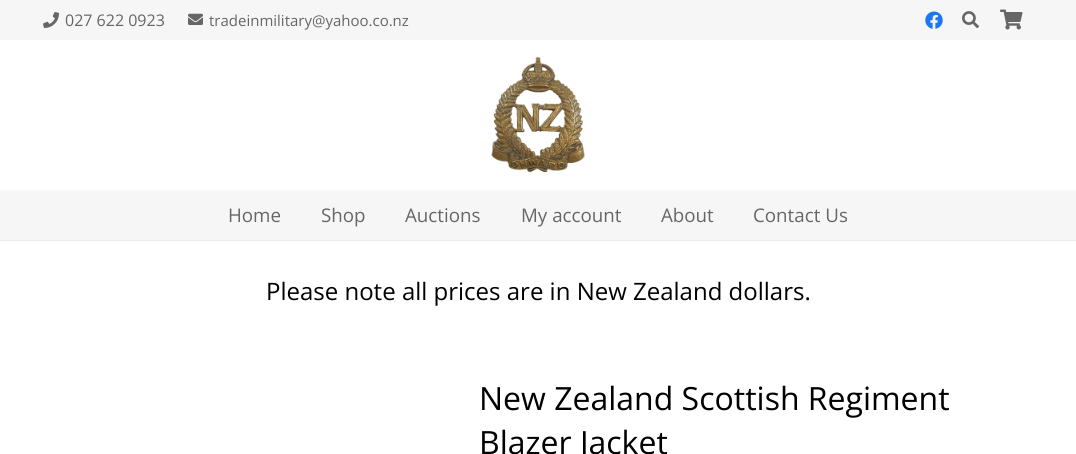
import math
import cairo

surface = cairo.ImageSurface(cairo.FORMAT_RGB24, 1076, 454)
c = cairo.Context(surface)
options = cairo.FontOptions()
options.set_hint_metrics(cairo.HINT_METRICS_OFF)
options.set_hint_style(cairo.HINT_STYLE_NONE)
c.set_font_options(options)
c.set_miter_limit(4)
def C(code):
 c.set_source_rgb(*(v / 255 for v in bytes.fromhex(code[-6:])))
def F(family, size, italic, bold):
 c.select_font_face(family, cairo.FONT_SLANT_ITALIC if italic else cairo.FONT_SLANT_NORMAL, cairo.FONT_WEIGHT_BOLD if bold else cairo.FONT_WEIGHT_NORMAL)
 c.set_font_size(size)
def T(x, y, s):
 c.move_to(x, y)
 c.show_text(s)
def R(x, y, w, h):
 c.rectangle(x, y, w, h)
 c.fill()
def I(path, x, y, w, h):
 c.save()
 c.set_source_surface(cairo.ImageSurface.create_from_png(path), x, y)
 c.rectangle(x, y, w, h)
 c.fill()
 c.restore()
C('ffffff')
c.paint()
C('f6f6f6')
R(0,0,1076,40)
I('1.png',43,12,16,16)
F('Open Sans',16,0,0)
C('666666')
T(65,26,'027 622 0923')
I('2.png',188,13,15,12)
F('Open Sans',15,0,0)
T(209,26,'tradeinmilitary@yahoo.co.nz')
I('3.png',925,11,18,18)
I('4.png',962,11,17,18)
I('5.png',1000,9,23,21)
I('6.png',491,56,94,117)
C('ebebeb')
R(0,240,1076,1)
C('f6f6f6')
R(0,190,1076,50)
F('Open Sans',18.75,0,0)
C('666666')
T(228,222,'Home')
T(321,222,'Shop')
T(405,222,'Auctions')
T(521,222,'My account')
T(661,222,'About')
T(753,222,'Contact Us')
F('Open Sans',24,0,0)
C('000000')
T(266,300,'Please note all prices are in New Zealand dollars.')
F('Open Sans',32,0,0)
T(479,410,'New Zealand Scottish Regiment')
T(479,454,'Blazer Jacket')
surface.write_to_png('o.png')
